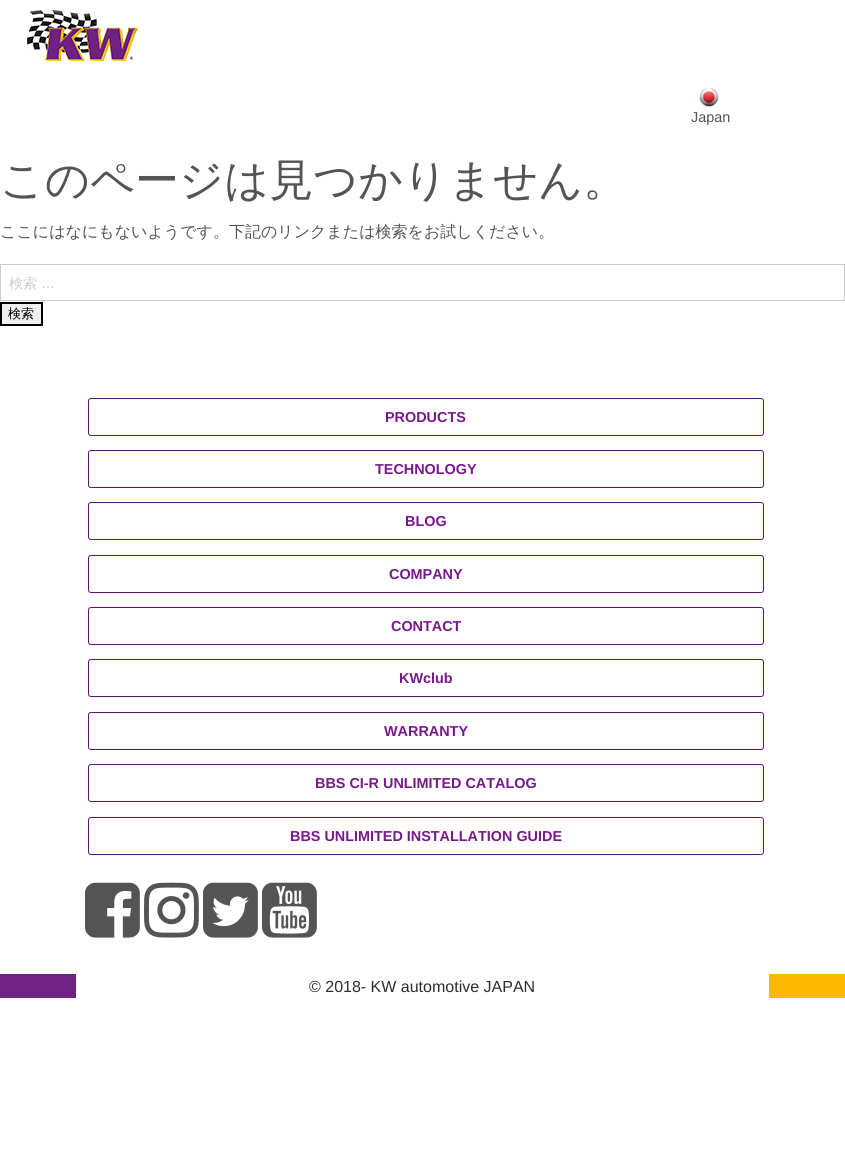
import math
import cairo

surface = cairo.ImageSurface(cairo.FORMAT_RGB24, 845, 1170)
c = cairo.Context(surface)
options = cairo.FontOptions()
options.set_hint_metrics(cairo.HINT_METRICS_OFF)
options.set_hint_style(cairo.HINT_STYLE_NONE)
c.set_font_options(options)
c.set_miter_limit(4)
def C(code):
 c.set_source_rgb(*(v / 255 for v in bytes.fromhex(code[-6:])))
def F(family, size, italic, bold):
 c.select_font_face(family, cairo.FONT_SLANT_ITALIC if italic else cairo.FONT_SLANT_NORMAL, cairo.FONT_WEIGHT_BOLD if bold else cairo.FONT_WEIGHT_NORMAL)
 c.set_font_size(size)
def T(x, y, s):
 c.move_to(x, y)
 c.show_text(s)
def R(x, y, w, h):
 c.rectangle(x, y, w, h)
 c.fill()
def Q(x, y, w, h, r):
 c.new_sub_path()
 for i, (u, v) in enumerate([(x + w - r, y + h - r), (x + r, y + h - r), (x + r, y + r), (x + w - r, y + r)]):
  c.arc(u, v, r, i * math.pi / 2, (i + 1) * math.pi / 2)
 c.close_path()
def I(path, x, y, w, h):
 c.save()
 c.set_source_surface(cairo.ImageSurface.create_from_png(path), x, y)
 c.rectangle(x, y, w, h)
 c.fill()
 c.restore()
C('ffffff')
c.paint()
I('1.png',27,10,111,51)
I('2.png',699,87,20,20)
F('Liberation Sans',14.4,0,0)
C('545454')
T(691,122,'Japan')
F('WenQuanYi Zen Hei Medium',44,0,0)
T(0,195,'このページは見つかりません。')
F('WenQuanYi Zen Hei Medium',16,0,0)
T(0,237,'ここにはなにもないようです。下記のリンクまたは検索をお試しください。')
c.rectangle(.5,264.5,844,36)
C('cccccc')
c.set_line_width(1)
c.stroke()
F('WenQuanYi Zen Hei Medium',14,0,0)
T(9,288,'検索')
F('Liberation Sans',14,0,0)
T(41,288,'…')
C('efefef')
c.rectangle(1,303,41,22)
c.fill_preserve()
C('000000')
c.set_line_width(2)
c.stroke()
F('WenQuanYi Zen Hei Medium',13,0,0)
T(8,318,'検索')
Q(88.5,398.5,675,37,2.5)
C('5f1471')
c.set_line_width(1)
c.stroke()
F('Liberation Sans',14.4,0,1)
C('77198d')
T(385,422,'PRODUCTS')
Q(88.5,450.5,675,37,2.5)
C('5f1471')
c.stroke()
C('77198d')
T(375,474,'TECHNOLOGY')
Q(88.5,502.5,675,37,2.5)
C('5f1471')
c.stroke()
C('77198d')
T(405,526,'BLOG')
Q(88.5,555.5,675,37,2.5)
C('5f1471')
c.stroke()
C('77198d')
T(389,579,'COMPANY')
Q(88.5,607.5,675,37,2.5)
C('5f1471')
c.stroke()
C('77198d')
T(391,631,'CONTACT')
Q(88.5,659.5,675,37,2.5)
C('5f1471')
c.stroke()
C('77198d')
T(399,683,'KWclub')
Q(88.5,712.5,675,37,2.5)
C('5f1471')
c.stroke()
C('77198d')
T(384,736,'WARRANTY')
Q(88.5,764.5,675,37,2.5)
C('5f1471')
c.stroke()
C('77198d')
T(315,788,'BBS CI-R UNLIMITED CATALOG')
Q(88.5,817.5,675,37,2.5)
C('5f1471')
c.stroke()
C('77198d')
T(290,841,'BBS UNLIMITED INSTALLATION GUIDE')
I('3.png',85,882,55,56)
I('4.png',144,882,55,56)
I('5.png',203,882,55,56)
I('6.png',262,882,55,56)
C('702283')
R(0,974,76,24)
F('Liberation Sans',16,0,0)
C('2d2d2d')
T(309,992,'© 2018- KW automotive JAPAN')
C('fbba00')
R(769,974,76,24)
surface.write_to_png('o.png')
